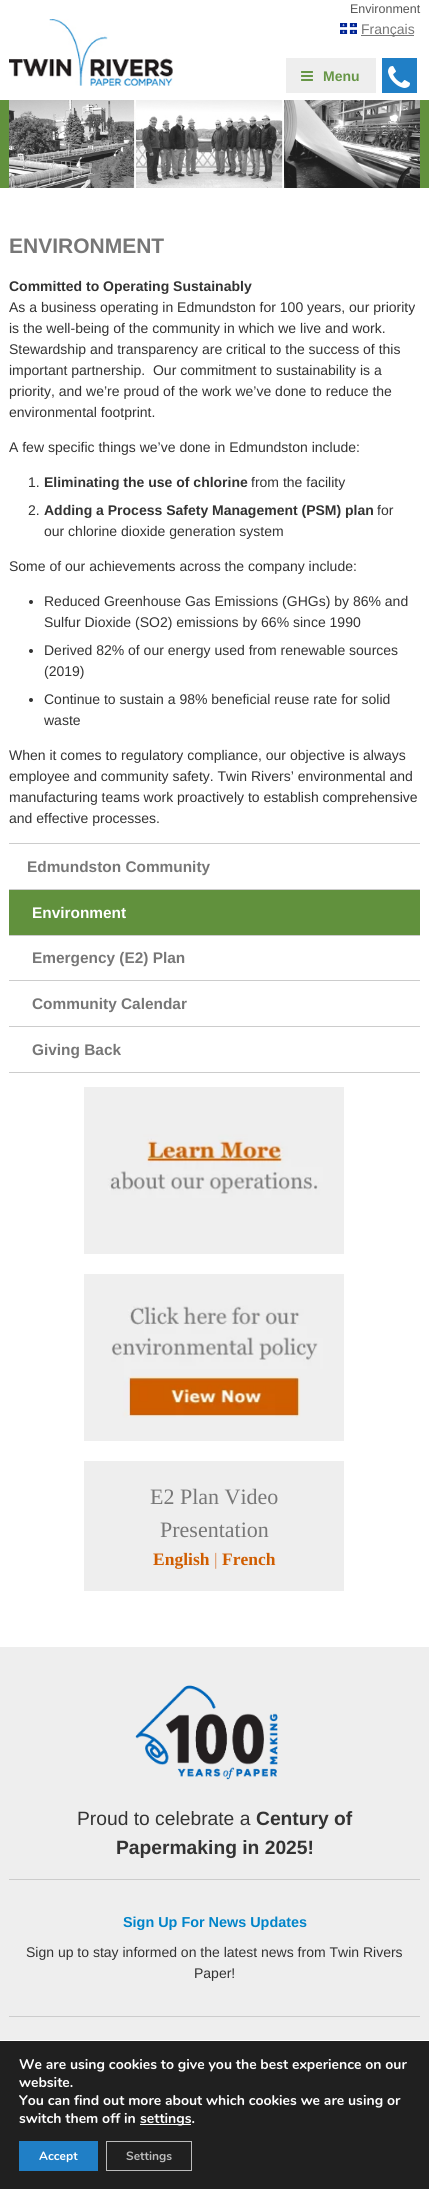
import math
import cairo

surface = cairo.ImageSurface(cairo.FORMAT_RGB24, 429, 2189)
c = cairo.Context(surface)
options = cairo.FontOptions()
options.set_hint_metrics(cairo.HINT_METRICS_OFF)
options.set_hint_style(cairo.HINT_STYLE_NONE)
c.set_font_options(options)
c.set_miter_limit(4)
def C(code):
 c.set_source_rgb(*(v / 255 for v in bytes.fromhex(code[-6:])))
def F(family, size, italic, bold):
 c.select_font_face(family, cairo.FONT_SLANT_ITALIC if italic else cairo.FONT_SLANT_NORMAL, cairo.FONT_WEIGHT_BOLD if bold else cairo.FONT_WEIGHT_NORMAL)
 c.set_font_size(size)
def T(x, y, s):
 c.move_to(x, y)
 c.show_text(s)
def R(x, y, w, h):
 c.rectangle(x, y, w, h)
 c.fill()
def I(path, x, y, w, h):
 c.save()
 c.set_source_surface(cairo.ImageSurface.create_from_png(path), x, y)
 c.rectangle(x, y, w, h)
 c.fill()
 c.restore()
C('ffffff')
c.paint()
F('Liberation Sans',12.5,0,0)
C('555555')
T(350,13,'Environment')
I('1.png',9,19,164,67)
I('2.png',340,23,17,11)
C('777777')
R(361,35,53,1)
F('Liberation Sans',14,0,0)
T(361,34,'Français')
C('eeeeee')
R(286,58,90,35)
I('3.png',301,71,12,10)
F('Liberation Sans',14,0,1)
C('679647')
T(323,81,'Menu')
C('207fc6')
R(382,58,35,35)
I('4.png',388,66,22,22)
C('61913d')
R(0,100,429,88)
I('5.png',9,100,411,88)
F('Liberation Sans',21,0,1)
C('777777')
T(9,253,'ENVIRONMENT')
F('Liberation Sans',14,0,1)
C('333333')
T(9,291,'Committed to Operating Sustainably')
F('Liberation Sans',14,0,0)
T(9,312,'As a business operating in Edmundston for 100 years, our priority')
T(9,333,'is the well-being of the community in which we live and work.')
T(9,354,'Stewardship and transparency are critical to the success of this')
T(9,375,'important partnership.  Our commitment to sustainability is a')
T(9,396,'priority, and we’re proud of the work we’ve done to reduce the')
T(9,417,'environmental footprint.')
T(9,452,'A few specific things we’ve done in Edmundston include:')
T(28,487,'1.')
F('Liberation Sans',14,0,1)
T(44,487,'Eliminating the use of chlorine')
F('Liberation Sans',14,0,0)
T(251,487,'from the facility')
T(28,515,'2.')
F('Liberation Sans',14,0,1)
T(44,515,'Adding a Process Safety Management (PSM) plan')
F('Liberation Sans',14,0,0)
T(377,515,'for')
T(44,536,'our chlorine dioxide generation system')
T(9,571,'Some of our achievements across the company include:')
c.new_path()
c.arc(31,602,2,0,2 * math.pi)
c.fill()
T(44,606,'Reduced Greenhouse Gas Emissions (GHGs) by 86% and')
T(44,627,'Sulfur Dioxide (SO2) emissions by 66% since 1990')
c.new_path()
c.arc(31,651,2,0,2 * math.pi)
c.fill()
T(44,655,'Derived 82% of our energy used from renewable sources')
T(44,676,'(2019)')
c.new_path()
c.arc(31,700,2,0,2 * math.pi)
c.fill()
T(44,704,'Continue to sustain a 98% beneficial reuse rate for solid')
T(44,725,'waste')
T(9,760,'When it comes to regulatory compliance, our objective is always')
T(9,781,'employee and community safety. Twin Rivers’ environmental and')
T(9,802,'manufacturing teams work proactively to establish comprehensive')
T(9,823,'and effective processes.')
C('cccccc')
R(9,843,411,1)
R(9,889,411,1)
F('Liberation Sans',15.4,0,1)
C('777777')
T(27,872,'Edmundston Community')
C('61913d')
R(9,890,411,45)
C('cccccc')
R(9,935,411,1)
C('ffffff')
T(32,918,'Environment')
C('cccccc')
R(9,980,411,1)
C('777777')
T(32,963,'Emergency (E2) Plan')
C('cccccc')
R(9,1026,411,1)
C('777777')
T(32,1009,'Community Calendar')
C('cccccc')
R(9,1072,411,1)
C('777777')
T(32,1055,'Giving Back')
I('6.png',84,1087,260,167)
I('7.png',84,1274,260,167)
C('eeeeee')
R(84,1461,260,130)
F('Liberation Serif',22,0,0)
C('777777')
T(150,1504,'E2 Plan Video')
T(160,1537,'Presentation')
F('Liberation Serif',17.5,0,1)
C('d05d00')
T(153,1565,'English')
F('Liberation Serif',17.5,0,0)
C('dc854c')
T(214,1565,'|')
F('Liberation Serif',17.5,0,1)
C('d05d00')
T(222,1565,'French')
C('eeeeee')
R(0,1647,429,393)
I('8.png',135,1685,143,95)
F('Liberation Sans',19.25,0,0)
C('333333')
T(77,1825,'Proud to celebrate a')
F('Liberation Sans',19.25,0,1)
T(256,1825,'Century of')
T(116,1854,'Papermaking in 2025!')
C('cccccc')
R(9,1879,411,1)
F('Liberation Sans',14.4,0,1)
C('0084c9')
T(123,1927,'Sign Up For News Updates')
F('Liberation Sans',14,0,0)
C('333333')
T(26,1957,'Sign up to stay informed on the latest news from Twin Rivers')
T(194,1978,'Paper!')
C('cccccc')
R(9,2016,411,1)
C('202020')
R(0,2041,429,148)
F('Nunito',14,0,1)
C('ffffff')
T(19,2069,'We are using cookies to give you the best experience on our')
T(19,2087,'website.')
T(19,2105,'You can find out more about which cookies we are using or')
T(19,2123,'switch them off in')
R(140,2124,51,1)
T(140,2123,'settings.')
C('207fc6')
R(19,2141,79,30)
F('Nunito',12,0,1)
C('ffffff')
T(39,2160,'Accept')
c.rectangle(106.5,2141.5,85,29)
C('bcbcbc')
c.set_line_width(1)
c.stroke()
T(126,2160,'Settings')
surface.write_to_png('o.png')
